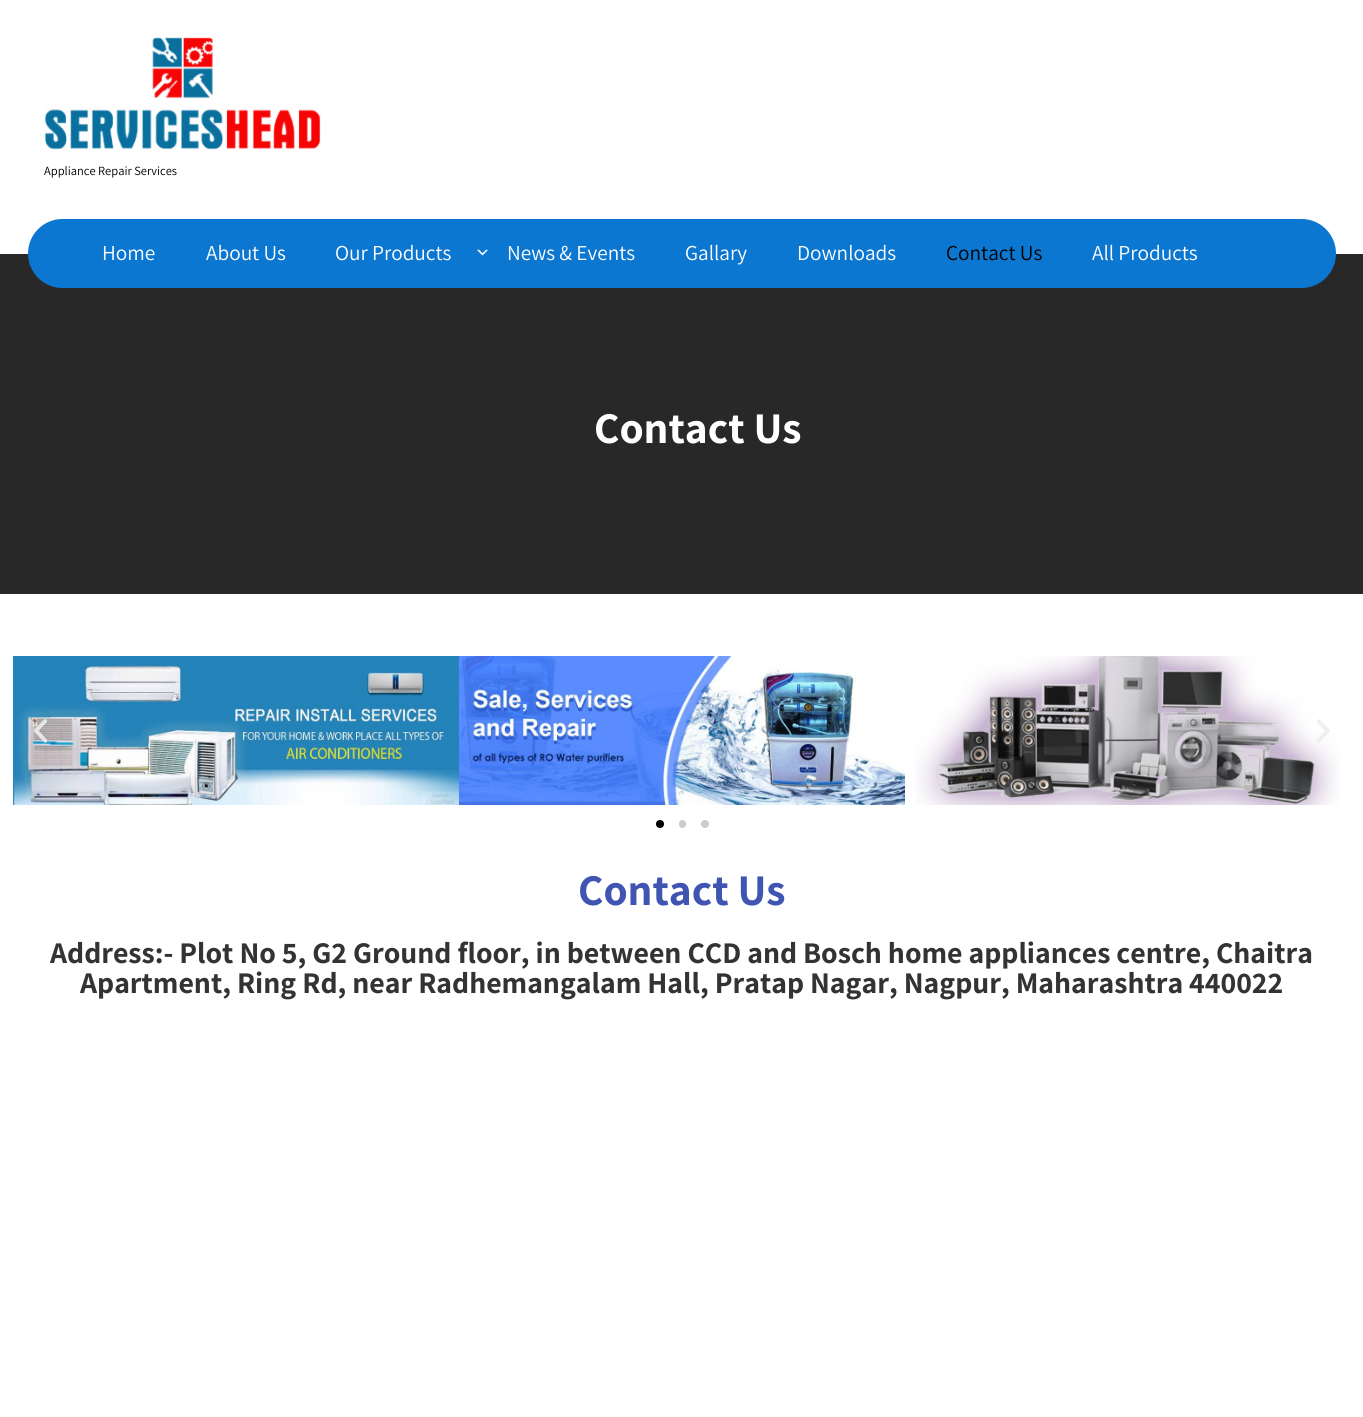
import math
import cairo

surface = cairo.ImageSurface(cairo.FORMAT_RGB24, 1363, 1417)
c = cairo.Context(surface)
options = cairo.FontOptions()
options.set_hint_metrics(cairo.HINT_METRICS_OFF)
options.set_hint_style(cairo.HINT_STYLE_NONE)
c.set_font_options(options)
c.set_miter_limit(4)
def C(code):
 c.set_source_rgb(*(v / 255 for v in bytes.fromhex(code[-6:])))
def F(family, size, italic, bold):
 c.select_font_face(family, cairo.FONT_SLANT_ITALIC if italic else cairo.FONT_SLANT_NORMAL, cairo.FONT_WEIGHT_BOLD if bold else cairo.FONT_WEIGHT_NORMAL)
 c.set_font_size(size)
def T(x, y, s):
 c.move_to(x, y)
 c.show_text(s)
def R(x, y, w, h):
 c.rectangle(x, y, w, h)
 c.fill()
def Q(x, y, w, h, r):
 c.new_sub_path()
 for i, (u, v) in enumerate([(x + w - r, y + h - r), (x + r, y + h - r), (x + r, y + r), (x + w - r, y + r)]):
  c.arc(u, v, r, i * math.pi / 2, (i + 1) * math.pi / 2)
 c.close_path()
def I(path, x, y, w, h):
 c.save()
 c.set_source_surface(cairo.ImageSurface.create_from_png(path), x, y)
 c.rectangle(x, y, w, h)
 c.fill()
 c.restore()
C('ffffff')
c.paint()
I('1.png',44,37,277,113)
F('Assistant',12.5,0,0)
C('000000')
T(44,175,'Appliance Repair Services')
C('282828')
R(0,254,1363,340)
C('0c77d1')
Q(28,219,1308,69,34.5)
c.fill()
F('Assistant',21.25,0,0)
C('ffffff')
T(102,260,'Home')
T(206,260,'About Us')
T(335,260,'Our Products')
I('2.png',477,249,11,7)
T(507,260,'News & Events')
T(685,260,'Gallary')
T(797,260,'Downloads')
C('000000')
T(946,260,'Contact Us')
C('ffffff')
T(1092,260,'All Products')
F('Assistant',43.75,0,1)
T(594,443,'Contact Us')
I('3.png',13,656,446,149)
I('4.png',459,656,446,149)
I('5.png',915,656,425,149)
I('6.png',34,719,14,24)
I('7.png',1316,719,14,24)
C('000000')
c.arc(660,824,4,0,2 * math.pi)
c.fill()
C('cccccc')
Q(679,820,7,8,3.5)
c.fill()
c.arc(705,824,4,0,2 * math.pi)
c.fill()
C('4054b2')
T(578,905,'Contact Us')
F('Assistant',30,0,1)
C('333333')
T(50,963,'Address:- Plot No 5, G2 Ground floor, in between CCD and Bosch home appliances centre, Chaitra')
T(80,993,'Apartment, Ring Rd, near Radhemangalam Hall, Pratap Nagar, Nagpur, Maharashtra 440022')
surface.write_to_png('o.png')
